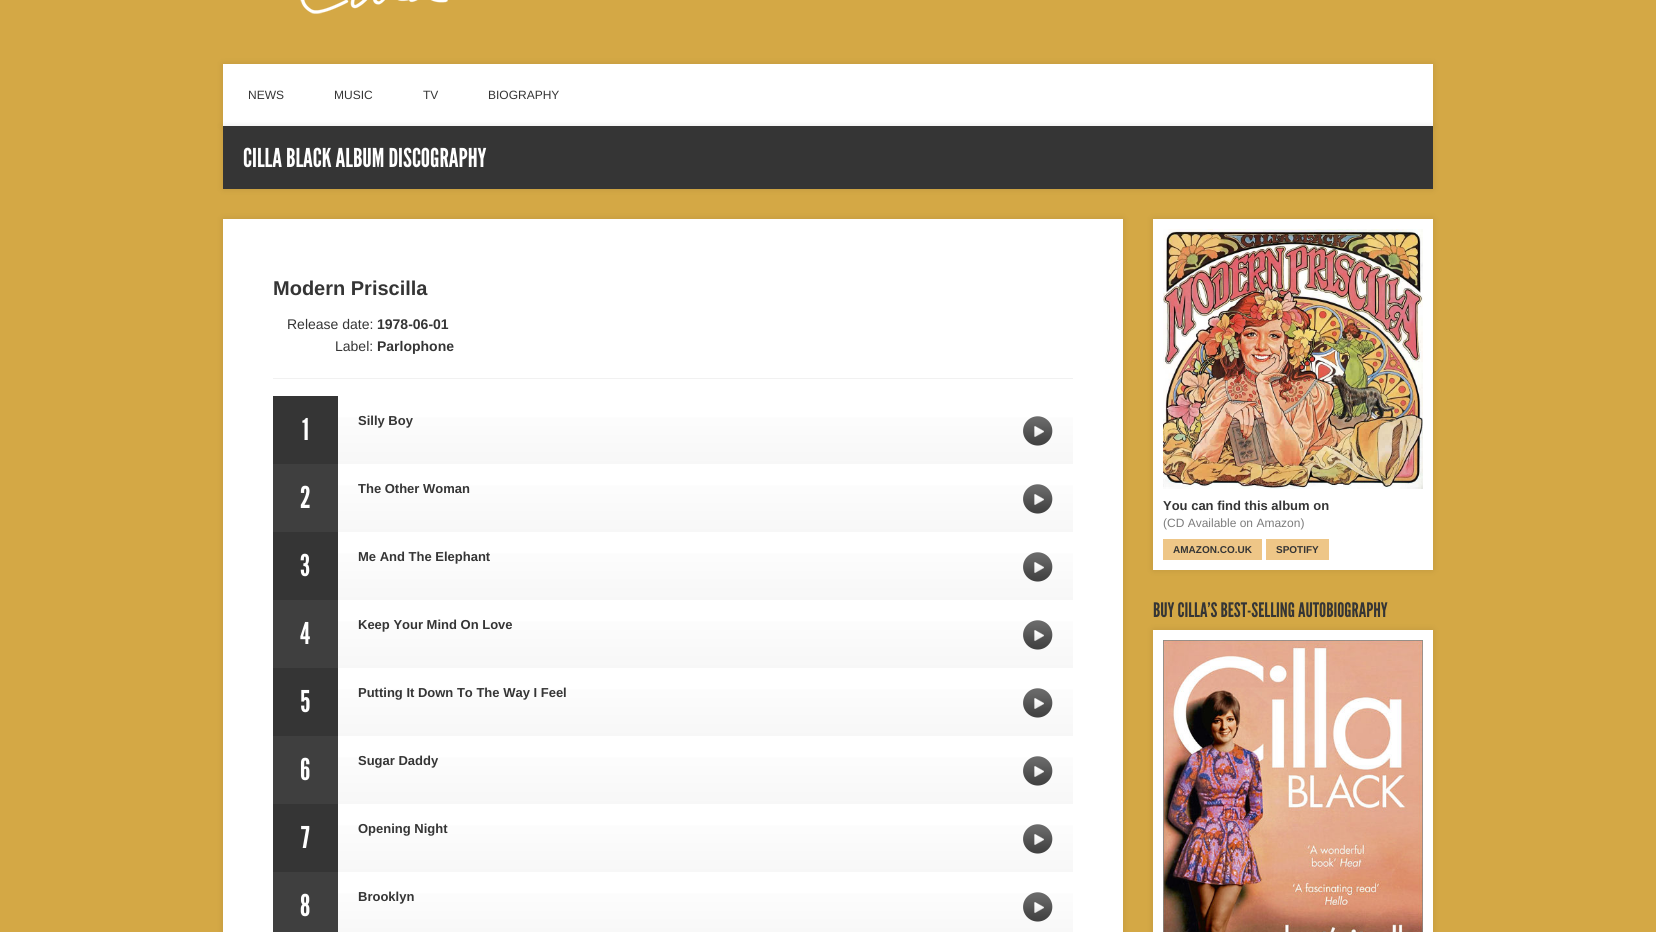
import math
import cairo

surface = cairo.ImageSurface(cairo.FORMAT_RGB24, 1656, 932)
c = cairo.Context(surface)
options = cairo.FontOptions()
options.set_hint_metrics(cairo.HINT_METRICS_OFF)
options.set_hint_style(cairo.HINT_STYLE_NONE)
c.set_font_options(options)
c.set_miter_limit(4)
def C(code):
 c.set_source_rgb(*(v / 255 for v in bytes.fromhex(code[-6:])))
def F(family, size, italic, bold):
 c.select_font_face(family, cairo.FONT_SLANT_ITALIC if italic else cairo.FONT_SLANT_NORMAL, cairo.FONT_WEIGHT_BOLD if bold else cairo.FONT_WEIGHT_NORMAL)
 c.set_font_size(size)
def T(x, y, s):
 c.move_to(x, y)
 c.show_text(s)
def R(x, y, w, h):
 c.rectangle(x, y, w, h)
 c.fill()
def Q(x, y, w, h, r):
 c.new_sub_path()
 for i, (u, v) in enumerate([(x + w - r, y + h - r), (x + r, y + h - r), (x + r, y + r), (x + w - r, y + r)]):
  c.arc(u, v, r, i * math.pi / 2, (i + 1) * math.pi / 2)
 c.close_path()
def S(x, y, w, h, r, blur, alpha):
 c.push_group_with_content(cairo.CONTENT_ALPHA)
 c.set_operator(cairo.OPERATOR_SOURCE)
 for i in range(15, -16, -2):
  e = blur * i / 6
  if min(w, h) + 2 * e > 0:
   c.set_source_rgba(0, 0, 0, alpha * math.erfc((i - 1) / 8.5) / 2)
   Q(x - e, y - e, w + 2 * e, h + 2 * e, max(0, min(r + e + blur * .6, min(w, h) / 2 + e)))
   c.fill()
 c.mask(c.pop_group())
def I(path, x, y, w, h):
 c.save()
 c.set_source_surface(cairo.ImageSurface.create_from_png(path), x, y)
 c.rectangle(x, y, w, h)
 c.fill()
 c.restore()
C('d4a845')
c.paint()
I('1.png',300,0,148,14)
C('000000')
S(223,64,1210,62,0,3.5,.1)
C('ffffff')
R(223,64,1210,62)
F('Liberation Sans',12,0,0)
C('353535')
T(248,99,'NEWS')
T(334,99,'MUSIC')
T(423,99,'TV')
T(488,99,'BIOGRAPHY')
C('000000')
S(223,126,1210,63,0,3.5,.1)
C('353535')
R(223,126,1210,63)
F('League Gothic',26,0,0)
C('ffffff')
T(243,167,'CILLA BLACK ALBUM DISCOGRAPHY')
C('000000')
S(223,219,900,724,0,3.5,.1)
C('ffffff')
R(223,219,900,713)
F('Liberation Sans',20,0,1)
C('353535')
T(273,295,'Modern Priscilla')
C('f1f1f1')
R(273,378,800,1)
F('Liberation Sans',14,0,0)
C('353535')
T(287,329,'Release date:')
F('Liberation Sans',14,0,1)
T(377,329,'1978-06-01')
F('Liberation Sans',14,0,0)
T(335,351,'Label:')
F('Liberation Sans',14,0,1)
T(377,351,'Parlophone')
gradient = cairo.LinearGradient(673,396,673,464)
gradient.add_color_stop_rgba(0,1,1,1,1)
gradient.add_color_stop_rgba(1,0.969,0.969,0.969,1)
c.set_source(gradient)
R(338,417,735,47)
C('353535')
R(273,396,65,68)
F('League Gothic',30,0,0)
C('ffffff')
T(302,440,'1')
F('Liberation Sans',13,0,1)
C('353535')
T(358,425,'Silly Boy')
I('2.png',1023,416,30,30)
gradient = cairo.LinearGradient(673,464,673,532)
gradient.add_color_stop_rgba(0,1,1,1,1)
gradient.add_color_stop_rgba(1,0.969,0.969,0.969,1)
c.set_source(gradient)
R(338,485,735,47)
C('3f3f3f')
R(273,464,65,68)
F('League Gothic',30,0,0)
C('ffffff')
T(300,508,'2')
F('Liberation Sans',13,0,1)
C('353535')
T(358,493,'The Other Woman')
I('2.png',1023,484,30,30)
gradient = cairo.LinearGradient(673,532,673,600)
gradient.add_color_stop_rgba(0,1,1,1,1)
gradient.add_color_stop_rgba(1,0.969,0.969,0.969,1)
c.set_source(gradient)
R(338,553,735,47)
C('353535')
R(273,532,65,68)
F('League Gothic',30,0,0)
C('ffffff')
T(300,576,'3')
F('Liberation Sans',13,0,1)
C('353535')
T(358,561,'Me And The Elephant')
I('2.png',1023,552,30,30)
gradient = cairo.LinearGradient(673,600,673,668)
gradient.add_color_stop_rgba(0,1,1,1,1)
gradient.add_color_stop_rgba(1,0.969,0.969,0.969,1)
c.set_source(gradient)
R(338,621,735,47)
C('3f3f3f')
R(273,600,65,68)
F('League Gothic',30,0,0)
C('ffffff')
T(300,644,'4')
F('Liberation Sans',13,0,1)
C('353535')
T(358,629,'Keep Your Mind On Love')
I('2.png',1023,620,30,30)
gradient = cairo.LinearGradient(673,668,673,736)
gradient.add_color_stop_rgba(0,1,1,1,1)
gradient.add_color_stop_rgba(1,0.969,0.969,0.969,1)
c.set_source(gradient)
R(338,689,735,47)
C('353535')
R(273,668,65,68)
F('League Gothic',30,0,0)
C('ffffff')
T(300,712,'5')
F('Liberation Sans',13,0,1)
C('353535')
T(358,697,'Putting It Down To The Way I Feel')
I('2.png',1023,688,30,30)
gradient = cairo.LinearGradient(673,736,673,804)
gradient.add_color_stop_rgba(0,1,1,1,1)
gradient.add_color_stop_rgba(1,0.969,0.969,0.969,1)
c.set_source(gradient)
R(338,757,735,47)
C('3f3f3f')
R(273,736,65,68)
F('League Gothic',30,0,0)
C('ffffff')
T(300,780,'6')
F('Liberation Sans',13,0,1)
C('353535')
T(358,765,'Sugar Daddy')
I('2.png',1023,756,30,30)
gradient = cairo.LinearGradient(673,804,673,872)
gradient.add_color_stop_rgba(0,1,1,1,1)
gradient.add_color_stop_rgba(1,0.969,0.969,0.969,1)
c.set_source(gradient)
R(338,825,735,47)
C('353535')
R(273,804,65,68)
F('League Gothic',30,0,0)
C('ffffff')
T(301,848,'7')
F('Liberation Sans',13,0,1)
C('353535')
T(358,833,'Opening Night')
I('2.png',1023,824,30,30)
gradient = cairo.LinearGradient(673,872,673,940)
gradient.add_color_stop_rgba(0,1,1,1,1)
gradient.add_color_stop_rgba(1,0.969,0.969,0.969,1)
c.set_source(gradient)
R(338,893,735,39)
C('3f3f3f')
R(273,872,65,60)
F('League Gothic',30,0,0)
C('ffffff')
T(300,916,'8')
F('Liberation Sans',13,0,1)
C('353535')
T(358,901,'Brooklyn')
I('2.png',1023,892,30,30)
C('000000')
S(1153,219,280,351,0,3.5,.1)
C('ffffff')
R(1153,219,280,351)
I('3.png',1163,229,260,260)
C('353535')
T(1163,510,'You can find this album on')
F('Liberation Sans',12,0,0)
C('7c7c7c')
T(1163,527,'(CD Available on Amazon)')
C('eec687')
R(1163,539,99,21)
F('Liberation Sans',10,0,1)
C('353535')
T(1173,553,'AMAZON.CO.UK')
C('eec687')
R(1266,539,63,21)
C('353535')
T(1276,553,'SPOTIFY')
C('000000')
S(1153,630,280,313,0,3.5,.1)
C('ffffff')
R(1153,630,280,302)
F('League Gothic',20,0,0)
C('353535')
T(1153,617,'BUY CILLA’S BEST-SELLING AUTOBIOGRAPHY')
I('4.png',1163,640,260,292)
surface.write_to_png('o.png')
